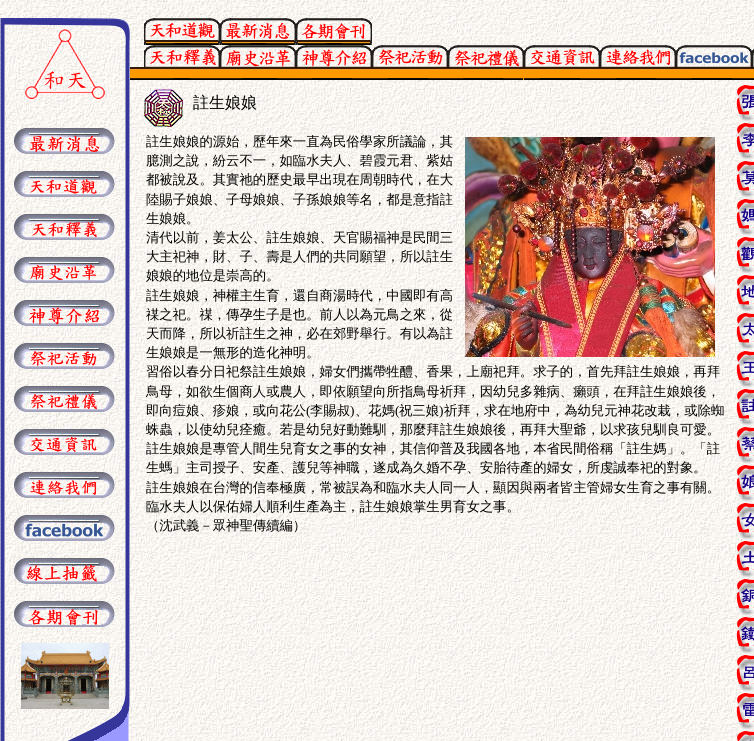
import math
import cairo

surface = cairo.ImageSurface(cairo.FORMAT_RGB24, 754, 741)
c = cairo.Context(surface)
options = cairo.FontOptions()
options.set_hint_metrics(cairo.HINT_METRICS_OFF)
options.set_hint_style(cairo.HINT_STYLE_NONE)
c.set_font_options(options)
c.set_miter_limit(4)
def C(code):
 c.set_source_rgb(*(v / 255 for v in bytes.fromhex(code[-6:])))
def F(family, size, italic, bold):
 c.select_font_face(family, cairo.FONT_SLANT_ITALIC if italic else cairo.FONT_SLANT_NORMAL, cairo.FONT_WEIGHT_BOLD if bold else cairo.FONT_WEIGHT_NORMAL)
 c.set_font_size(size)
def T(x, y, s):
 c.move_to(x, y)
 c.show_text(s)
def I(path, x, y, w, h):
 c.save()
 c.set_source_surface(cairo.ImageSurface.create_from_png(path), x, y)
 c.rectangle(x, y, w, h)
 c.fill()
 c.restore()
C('ffffff')
c.paint()
I('1.png',0,0,754,741)
I('2.png',0,18,130,86)
I('3.png',0,104,130,20)
I('4.png',0,124,130,33)
I('5.png',0,157,130,10)
I('6.png',0,167,130,33)
I('7.png',0,200,130,10)
I('8.png',0,210,130,33)
I('9.png',0,243,130,10)
I('10.png',0,253,130,33)
I('11.png',0,286,130,10)
I('12.png',0,296,130,33)
I('13.png',0,329,130,10)
I('14.png',0,339,130,33)
I('15.png',0,372,130,10)
I('16.png',0,382,130,33)
I('17.png',0,415,130,10)
I('18.png',0,425,130,33)
I('19.png',0,458,130,10)
I('20.png',0,468,130,33)
I('21.png',0,501,130,10)
I('22.png',0,511,130,33)
I('23.png',0,544,130,10)
I('24.png',0,554,130,33)
I('25.png',0,587,130,10)
I('26.png',0,597,130,33)
I('27.png',0,630,130,10)
I('28.png',0,640,130,71)
I('29.png',0,711,129,30)
I('30.png',144,18,76,27)
I('31.png',220,18,76,27)
I('32.png',296,18,76,27)
I('33.png',130,45,90,35)
I('34.png',220,45,76,35)
I('35.png',296,45,76,35)
I('36.png',372,45,76,35)
I('37.png',448,45,76,35)
I('38.png',524,45,76,35)
I('39.png',600,45,76,35)
I('40.png',676,45,76,35)
I('41.png',752,49,2,31)
I('42.png',144,89,39,38)
F('WenQuanYi Zen Hei Medium',16,0,0)
C('000000')
T(193,108,'註生娘娘')
F('WenQuanYi Zen Hei Medium',13.35,0,0)
T(146,146,'註生娘娘的源始，歷年來一直為民俗學家所議論，其')
I('43.png',465,137,250,220)
T(146,165,'臆測之說，紛云不一，如臨水夫人、碧霞元君、紫姑')
T(146,184,'都被說及。其實祂的歷史最早出現在周朝時代，在大')
T(146,204,'陸賜子娘娘、子母娘娘、子孫娘娘等名，都是意指註')
T(146,223,'生娘娘。')
T(146,242,'清代以前，姜太公、註生娘娘、天官賜福神是民間三')
T(146,261,'大主祀神，財、子、壽是人們的共同願望，所以註生')
T(146,280,'娘娘的地位是崇高的。')
T(146,300,'註生娘娘，神權主生育，還自商湯時代，中國即有高')
T(146,319,'禖之祀。禖，傳孕生子是也。前人以為元鳥之來，從')
T(146,338,'天而降，所以祈註生之神，必在郊野舉行。有以為註')
T(146,357,'生娘娘是一無形的造化神明。')
T(146,376,'習俗以春分日祀祭註生娘娘，婦女們攜帶牲醴、香果，上廟祀拜。求子的，首先拜註生娘娘，再拜')
T(146,396,'鳥母，如欲生個商人或農人，即依願望向所指鳥母祈拜，因幼兒多雜病、癩頭，在拜註生娘娘後，')
T(146,415,'即向痘娘、疹娘，或向花公')
F('Liberation Serif',13.35,0,0)
T(306,415,'(')
F('WenQuanYi Zen Hei Medium',13.35,0,0)
T(310,415,'李賜叔')
F('Liberation Serif',13.35,0,0)
T(350,415,')')
F('WenQuanYi Zen Hei Medium',13.35,0,0)
T(355,415,'、花媽')
F('Liberation Serif',13.35,0,0)
T(395,415,'(')
F('WenQuanYi Zen Hei Medium',13.35,0,0)
T(399,415,'祝三娘')
F('Liberation Serif',13.35,0,0)
T(439,415,')')
F('WenQuanYi Zen Hei Medium',13.35,0,0)
T(444,415,'祈拜，求在地府中，為幼兒元神花改栽，或除蜘')
T(146,434,'蛛蟲，以使幼兒痊癒。若是幼兒好動難馴，那麼拜註生娘娘後，再拜大聖爺，以求孩兒馴良可愛。')
T(146,453,'註生娘娘是專管人間生兒育女之事的女神，其信仰普及我國各地，本省民間俗稱「註生媽」。「註')
T(146,472,'生螞」主司授子、安產、護兒等神職，遂成為久婚不孕、安胎待產的婦女，所虔誠奉祀的對象。')
T(146,492,'註生娘娘在台灣的信奉極廣，常被誤為和臨水夫人同一人，顯因與兩者皆主管婦女生育之事有關。')
T(146,511,'臨水夫人以保佑婦人順利生產為主，註生娘娘掌生男育女之事。')
T(146,530,'（沈武義－眾神聖傳續編）')
I('44.png',736,85,18,37)
I('45.png',736,123,18,37)
I('46.png',736,161,18,37)
I('47.png',736,199,18,37)
I('48.png',736,237,18,37)
I('49.png',736,275,18,37)
I('50.png',736,313,18,37)
I('51.png',736,351,18,37)
I('52.png',736,389,18,37)
I('53.png',736,427,18,37)
I('54.png',736,465,18,37)
I('55.png',736,503,18,37)
I('56.png',736,541,18,37)
I('57.png',736,579,18,37)
I('58.png',736,617,18,37)
I('59.png',736,655,18,37)
I('60.png',736,693,18,37)
I('61.png',737,731,17,10)
surface.write_to_png('o.png')
